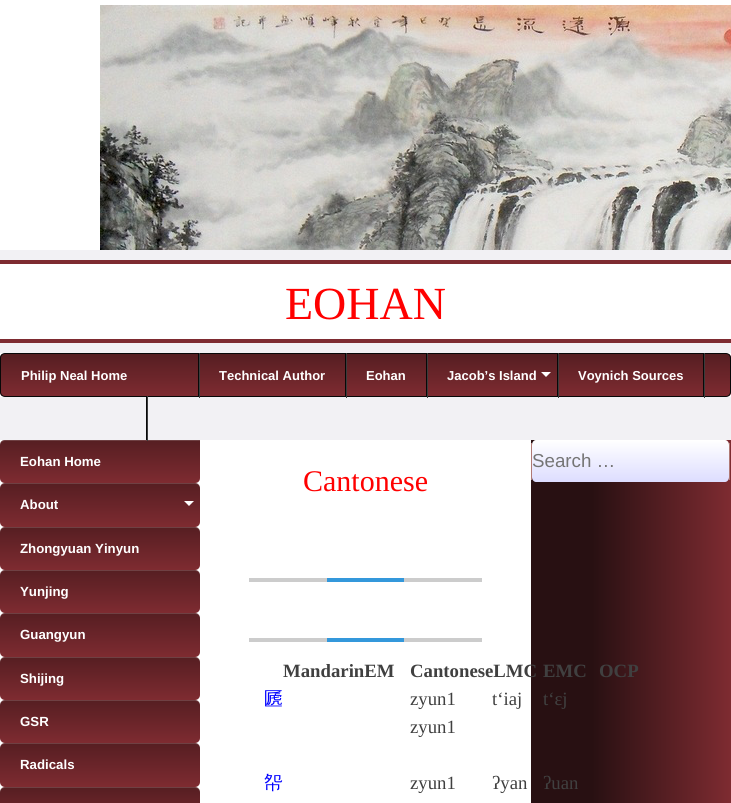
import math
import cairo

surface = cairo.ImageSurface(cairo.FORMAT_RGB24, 731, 803)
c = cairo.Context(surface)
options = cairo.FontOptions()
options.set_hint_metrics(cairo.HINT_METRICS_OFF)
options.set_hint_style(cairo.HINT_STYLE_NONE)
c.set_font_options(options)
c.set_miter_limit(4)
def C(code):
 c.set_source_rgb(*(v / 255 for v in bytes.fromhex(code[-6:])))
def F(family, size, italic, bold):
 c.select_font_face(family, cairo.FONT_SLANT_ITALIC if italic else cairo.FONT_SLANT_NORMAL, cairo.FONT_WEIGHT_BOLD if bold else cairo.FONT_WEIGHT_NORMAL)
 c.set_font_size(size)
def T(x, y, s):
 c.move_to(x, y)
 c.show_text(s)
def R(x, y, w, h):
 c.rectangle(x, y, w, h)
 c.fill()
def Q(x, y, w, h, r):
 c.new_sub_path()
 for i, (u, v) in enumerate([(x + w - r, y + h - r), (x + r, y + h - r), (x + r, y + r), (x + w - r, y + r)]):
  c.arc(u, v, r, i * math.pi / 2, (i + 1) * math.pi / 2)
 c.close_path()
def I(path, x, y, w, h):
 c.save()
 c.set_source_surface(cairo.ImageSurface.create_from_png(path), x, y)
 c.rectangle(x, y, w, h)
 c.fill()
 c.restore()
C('f2f1f4')
c.paint()
C('ffffff')
R(0,0,731,250)
I('1.png',100,5,631,245)
R(0,264,731,75)
C('7e2b31')
R(0,260,731,4)
R(0,339,731,4)
F('Liberation Serif',46,0,0)
C('ff0000')
T(285,319,'EOHAN')
C('ffffff')
R(0,353,731,44)
c.save()
Q(0,353,731,44,5)
c.clip()
gradient = cairo.LinearGradient(366,354,366,396)
gradient.add_color_stop_rgba(0,0.337,0.118,0.133,1)
gradient.add_color_stop_rgba(1,0.494,0.169,0.192,1)
c.set_source(gradient)
R(0,354,731,42)
c.restore()
Q(.5,353.5,730,43,4.5)
C('080808')
c.set_line_width(1)
c.stroke()
R(198,354,1,43)
F('Liberation Sans',13,0,1)
C('ffffff')
T(21,380,'Philip Neal Home')
C('3c3c3c')
R(199,353,1,45)
C('080808')
R(345,354,1,43)
C('ffffff')
T(219,380,'Technical Author')
C('3c3c3c')
R(346,353,1,45)
C('080808')
R(426,354,1,43)
C('ffffff')
T(366,380,'Eohan')
C('3c3c3c')
R(427,353,1,45)
C('080808')
R(557,354,1,43)
C('ffffff')
T(447,380,'Jacob’s Island')
c.new_path()
c.move_to(541,372)
c.line_to(551,372)
c.line_to(546,377)
c.close_path()
c.fill()
C('3c3c3c')
R(558,353,1,45)
C('080808')
R(703,354,1,43)
C('ffffff')
T(578,380,'Voynich Sources')
C('3c3c3c')
R(704,353,1,45)
C('080808')
R(146,397,1,43)
C('ffffff')
R(0,440,200,352)
gradient = cairo.LinearGradient(100,440,100,483)
gradient.add_color_stop_rgba(0,0.337,0.118,0.133,1)
gradient.add_color_stop_rgba(1,0.494,0.169,0.192,1)
c.set_source(gradient)
c.new_path()
c.move_to(5,440)
c.line_to(200,440)
c.line_to(200,478)
c.curve_to(200,481,198,483,195,483)
c.line_to(5,483)
c.curve_to(2,483,0,481,0,478)
c.line_to(0,445)
c.curve_to(0,442,2,440,5,440)
c.close_path()
c.fill()
c.set_source_rgba(1,1,1,0.15)
c.new_path()
c.move_to(5,441)
c.line_to(200,441)
c.line_to(200,440)
c.line_to(5,440)
c.curve_to(2,440,0,443,0,446)
c.curve_to(0,443,2,441,5,441)
c.close_path()
c.fill()
C('3c3c3c')
R(147,396,1,45)
F('Liberation Sans',13.25,0,1)
C('ffffff')
T(20,466,'Eohan Home')
gradient = cairo.LinearGradient(100,483,100,527)
gradient.add_color_stop_rgba(0,0.337,0.118,0.133,1)
gradient.add_color_stop_rgba(1,0.494,0.169,0.192,1)
c.set_source(gradient)
Q(0,483,200,44,5)
c.fill()
c.set_source_rgba(1,1,1,0.15)
c.new_path()
c.move_to(5,484)
c.line_to(195,484)
c.curve_to(198,484,200,486,200,489)
c.line_to(200,488)
c.curve_to(200,485,198,483,195,483)
c.line_to(5,483)
c.curve_to(2,483,0,485,0,488)
c.line_to(0,489)
c.curve_to(0,486,2,484,5,484)
c.close_path()
c.fill()
C('ffffff')
T(20,509,'About')
c.new_path()
c.move_to(184,501)
c.line_to(194,501)
c.line_to(189,506)
c.close_path()
c.fill()
gradient = cairo.LinearGradient(100,527,100,570)
gradient.add_color_stop_rgba(0,0.337,0.118,0.133,1)
gradient.add_color_stop_rgba(1,0.494,0.169,0.192,1)
c.set_source(gradient)
Q(0,527,200,43,5)
c.fill()
c.set_source_rgba(1,1,1,0.15)
c.new_path()
c.move_to(5,528)
c.line_to(195,528)
c.curve_to(198,528,200,530,200,533)
c.line_to(200,532)
c.curve_to(200,529,198,527,195,527)
c.line_to(5,527)
c.curve_to(2,527,0,529,0,532)
c.line_to(0,533)
c.curve_to(0,530,2,528,5,528)
c.close_path()
c.fill()
C('ffffff')
T(20,553,'Zhongyuan Yinyun')
gradient = cairo.LinearGradient(100,570,100,613)
gradient.add_color_stop_rgba(0,0.337,0.118,0.133,1)
gradient.add_color_stop_rgba(1,0.494,0.169,0.192,1)
c.set_source(gradient)
Q(0,570,200,43,5)
c.fill()
c.set_source_rgba(1,1,1,0.15)
c.new_path()
c.move_to(5,571)
c.line_to(195,571)
c.curve_to(198,571,200,573,200,576)
c.line_to(200,575)
c.curve_to(200,572,198,570,195,570)
c.line_to(5,570)
c.curve_to(2,570,0,572,0,575)
c.line_to(0,576)
c.curve_to(0,573,2,571,5,571)
c.close_path()
c.fill()
C('ffffff')
T(20,596,'Yunjing')
gradient = cairo.LinearGradient(100,613,100,657)
gradient.add_color_stop_rgba(0,0.337,0.118,0.133,1)
gradient.add_color_stop_rgba(1,0.494,0.169,0.192,1)
c.set_source(gradient)
Q(0,613,200,44,5)
c.fill()
c.set_source_rgba(1,1,1,0.15)
c.new_path()
c.move_to(5,614)
c.line_to(195,614)
c.curve_to(198,614,200,616,200,619)
c.line_to(200,618)
c.curve_to(200,615,198,613,195,613)
c.line_to(5,613)
c.curve_to(2,613,0,615,0,618)
c.line_to(0,619)
c.curve_to(0,616,2,614,5,614)
c.close_path()
c.fill()
C('ffffff')
T(20,639,'Guangyun')
gradient = cairo.LinearGradient(100,657,100,700)
gradient.add_color_stop_rgba(0,0.337,0.118,0.133,1)
gradient.add_color_stop_rgba(1,0.494,0.169,0.192,1)
c.set_source(gradient)
Q(0,657,200,43,5)
c.fill()
c.set_source_rgba(1,1,1,0.15)
c.new_path()
c.move_to(5,658)
c.line_to(195,658)
c.curve_to(198,658,200,660,200,663)
c.line_to(200,662)
c.curve_to(200,659,198,657,195,657)
c.line_to(5,657)
c.curve_to(2,657,0,659,0,662)
c.line_to(0,663)
c.curve_to(0,660,2,658,5,658)
c.close_path()
c.fill()
C('ffffff')
T(20,683,'Shijing')
gradient = cairo.LinearGradient(100,700,100,743)
gradient.add_color_stop_rgba(0,0.337,0.118,0.133,1)
gradient.add_color_stop_rgba(1,0.494,0.169,0.192,1)
c.set_source(gradient)
Q(0,700,200,43,5)
c.fill()
c.set_source_rgba(1,1,1,0.15)
c.new_path()
c.move_to(5,701)
c.line_to(195,701)
c.curve_to(198,701,200,703,200,706)
c.line_to(200,705)
c.curve_to(200,702,198,700,195,700)
c.line_to(5,700)
c.curve_to(2,700,0,702,0,705)
c.line_to(0,706)
c.curve_to(0,703,2,701,5,701)
c.close_path()
c.fill()
C('ffffff')
T(20,726,'GSR')
gradient = cairo.LinearGradient(100,743,100,787)
gradient.add_color_stop_rgba(0,0.337,0.118,0.133,1)
gradient.add_color_stop_rgba(1,0.494,0.169,0.192,1)
c.set_source(gradient)
Q(0,743,200,44,5)
c.fill()
c.set_source_rgba(1,1,1,0.15)
c.new_path()
c.move_to(5,744)
c.line_to(195,744)
c.curve_to(198,744,200,746,200,749)
c.line_to(200,748)
c.curve_to(200,745,198,743,195,743)
c.line_to(5,743)
c.curve_to(2,743,0,745,0,748)
c.line_to(0,749)
c.curve_to(0,746,2,744,5,744)
c.close_path()
c.fill()
C('ffffff')
T(20,769,'Radicals')
gradient = cairo.LinearGradient(100,787,100,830)
gradient.add_color_stop_rgba(0,0.337,0.118,0.133,1)
gradient.add_color_stop_rgba(1,0.494,0.169,0.192,1)
c.set_source(gradient)
Q(0,787,200,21,5)
c.fill()
c.set_source_rgba(1,1,1,0.15)
c.new_path()
c.move_to(5,788)
c.line_to(195,788)
c.curve_to(198,788,200,790,200,793)
c.line_to(200,792)
c.curve_to(200,789,198,787,195,787)
c.line_to(5,787)
c.curve_to(2,787,0,789,0,792)
c.line_to(0,793)
c.curve_to(0,790,2,788,5,788)
c.close_path()
c.fill()
gradient = cairo.LinearGradient(0,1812,731,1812)
gradient.add_color_stop_rgba(0,0.494,0.169,0.192,1)
gradient.add_color_stop_rgba(.19,0.157,0.063,0.071,1)
gradient.add_color_stop_rgba(.81,0.157,0.063,0.071,1)
gradient.add_color_stop_rgba(1,0.494,0.169,0.192,1)
c.set_source(gradient)
R(531,440,200,363)
gradient = cairo.LinearGradient(631,440,631,482)
gradient.add_color_stop_rgba(0,1,1,1,1)
gradient.add_color_stop_rgba(1,0.867,0.867,1,1)
c.set_source(gradient)
c.new_path()
c.move_to(536,440)
c.line_to(725,440)
c.curve_to(727,440,729,442,729,445)
c.line_to(729,477)
c.curve_to(729,480,727,482,725,482)
c.line_to(536,482)
c.curve_to(534,482,532,480,532,477)
c.line_to(532,445)
c.curve_to(532,442,534,440,536,440)
c.close_path()
c.fill()
C('b07975')
R(729,443,1,37)
R(531,443,1,37)
F('Liberation Sans',18.75,0,0)
C('757575')
T(532,467,'Search …')
C('ffffff')
R(200,440,331,363)
F('Liberation Serif',30,0,0)
C('ff0000')
T(303,491,'Cantonese')
C('cccccc')
R(249,578,78,4)
R(249,638,78,4)
C('3498db')
R(327,578,77,4)
R(327,638,77,4)
C('cccccc')
R(404,578,78,4)
R(404,638,78,4)
F('Liberation Serif',18.75,0,1)
C('404040')
T(283,677,'MandarinEM')
T(410,677,'CantoneseLMC')
T(543,677,'EMC')
T(599,677,'OCP')
F('WenQuanYi Zen Hei Medium',18.75,0,0)
C('0000ff')
T(264,705,'㔸')
F('Liberation Serif',18.75,0,0)
C('404040')
T(410,705,'zyun1')
T(410,733,'zyun1')
T(492,705,'t‘iaj')
T(543,705,'t‘ɛj')
F('WenQuanYi Zen Hei Medium',18.75,0,0)
C('0000ff')
T(264,789,'㠾')
F('Liberation Serif',18.75,0,0)
C('404040')
T(410,789,'zyun1')
T(492,789,'ʔyan')
T(543,789,'ʔuan')
surface.write_to_png('o.png')
